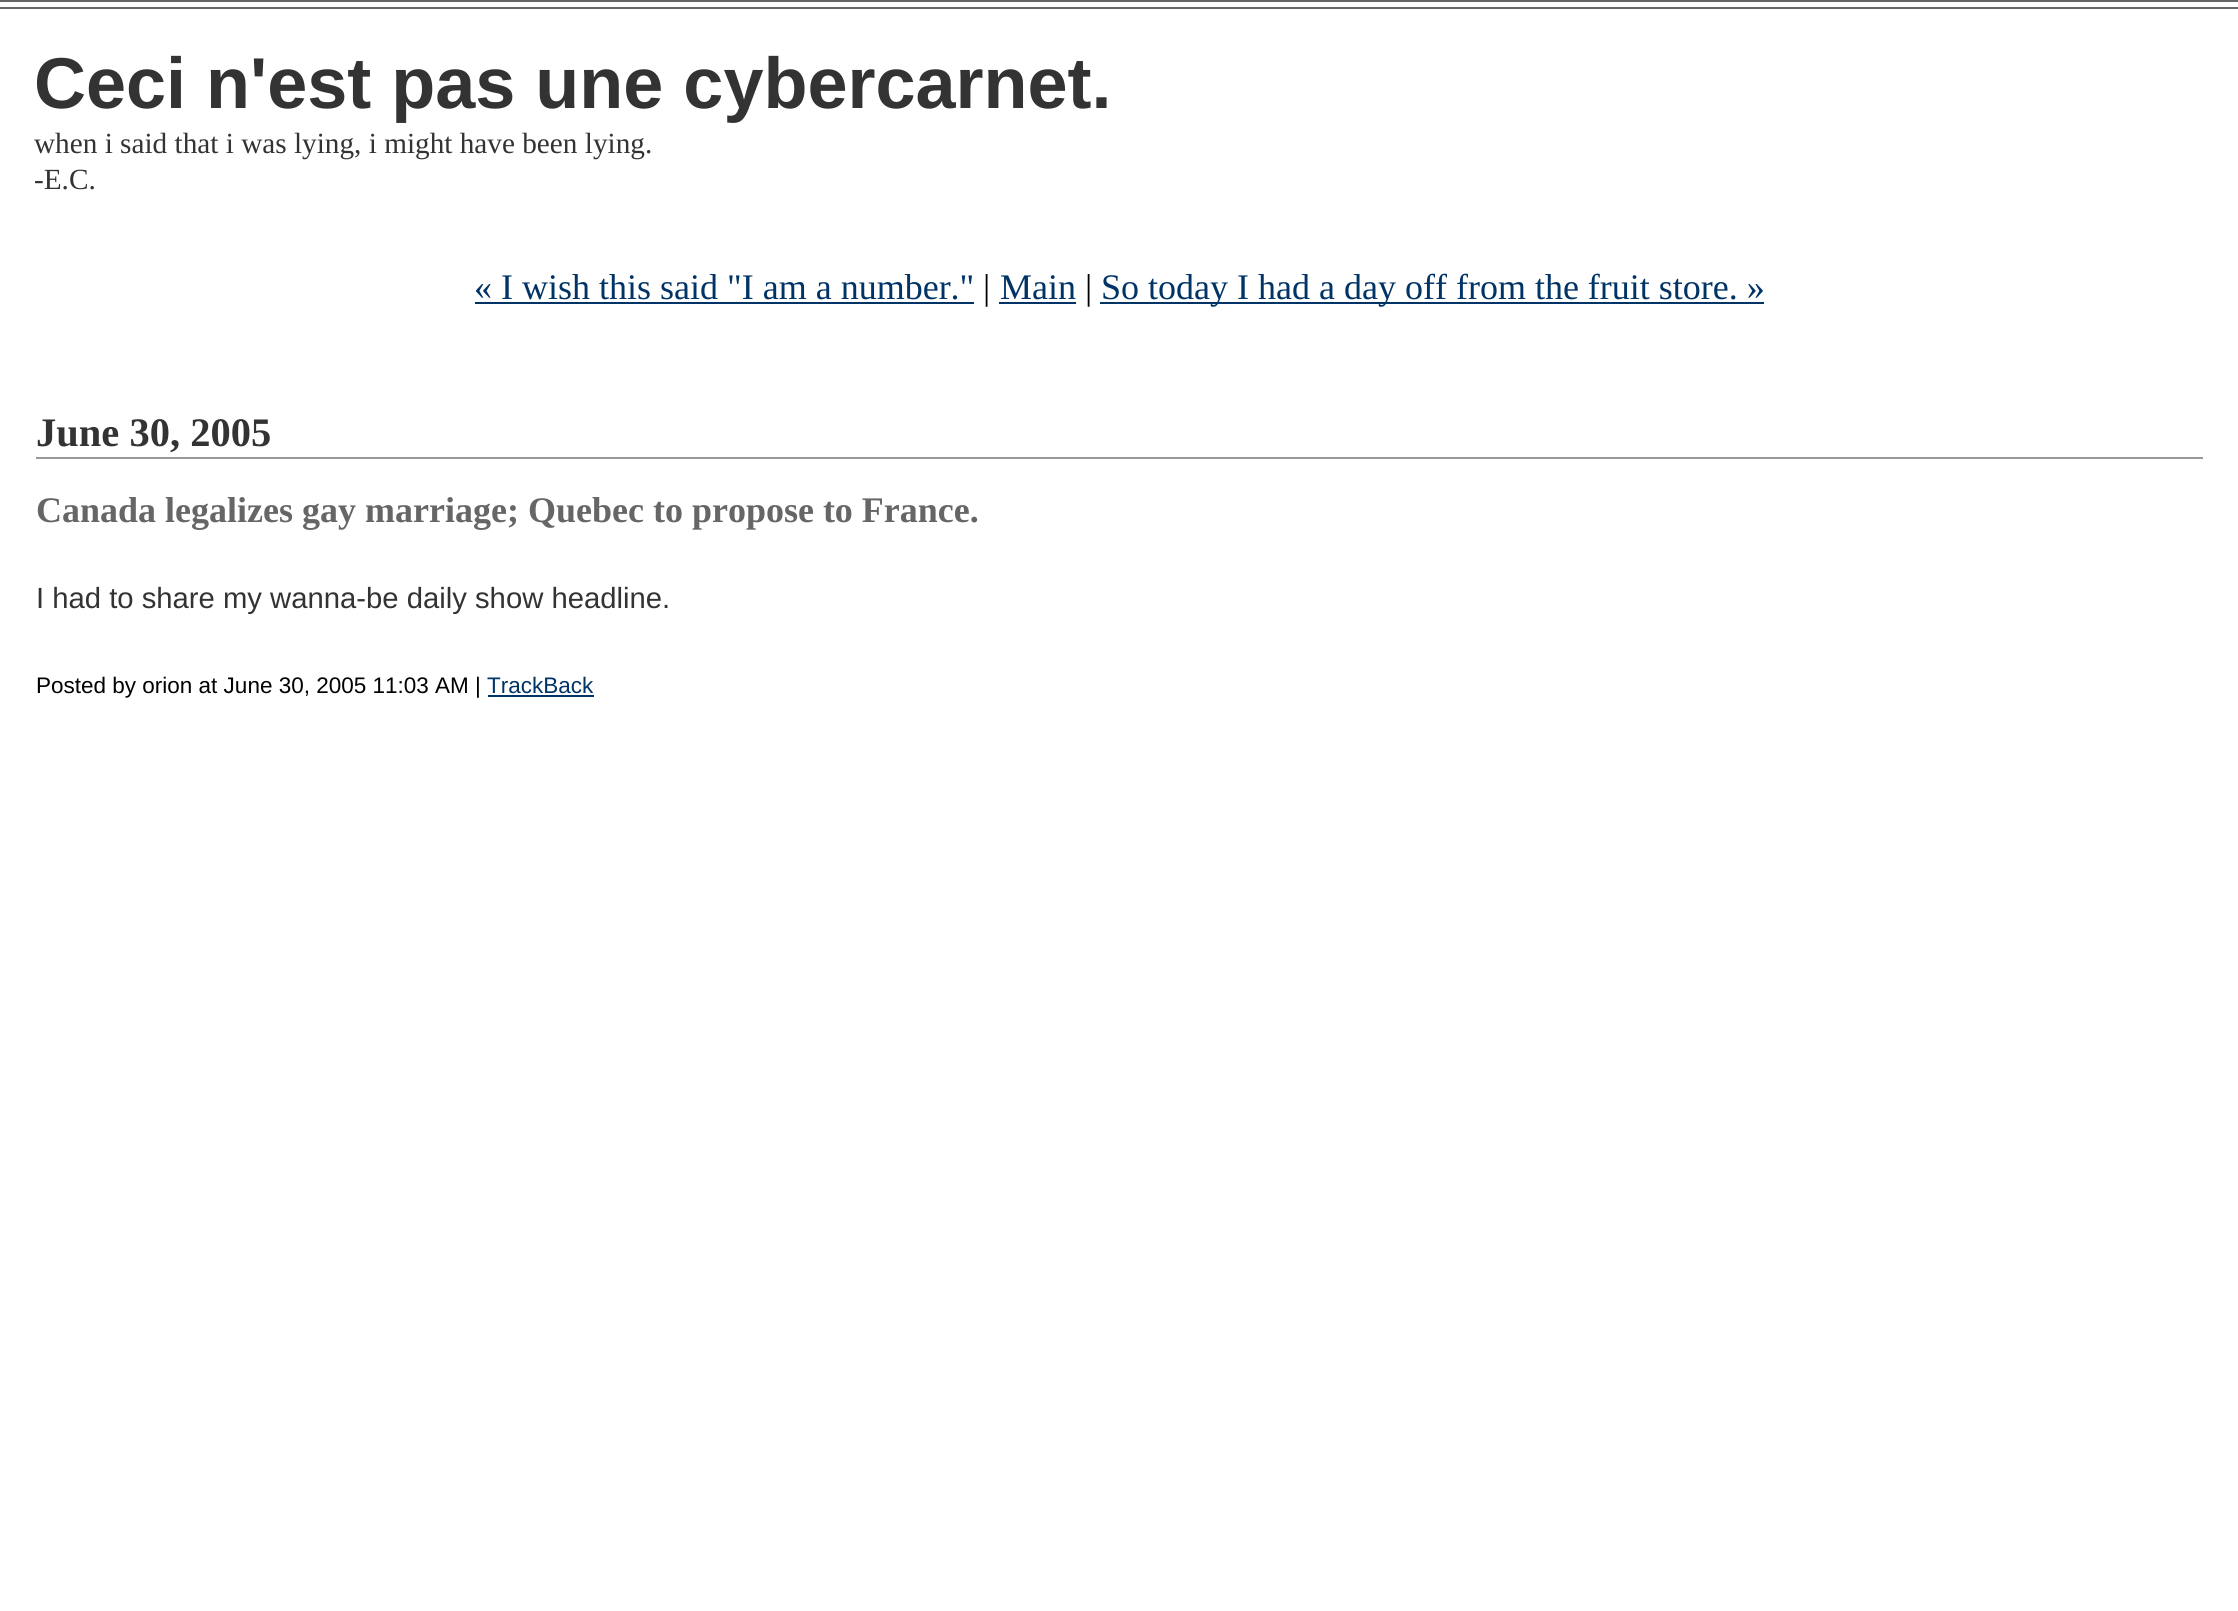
import math
import cairo

surface = cairo.ImageSurface(cairo.FORMAT_RGB24, 2238, 1611)
c = cairo.Context(surface)
options = cairo.FontOptions()
options.set_hint_metrics(cairo.HINT_METRICS_OFF)
options.set_hint_style(cairo.HINT_STYLE_NONE)
c.set_font_options(options)
c.set_miter_limit(4)
def C(code):
 c.set_source_rgb(*(v / 255 for v in bytes.fromhex(code[-6:])))
def F(family, size, italic, bold):
 c.select_font_face(family, cairo.FONT_SLANT_ITALIC if italic else cairo.FONT_SLANT_NORMAL, cairo.FONT_WEIGHT_BOLD if bold else cairo.FONT_WEIGHT_NORMAL)
 c.set_font_size(size)
def T(x, y, s):
 c.move_to(x, y)
 c.show_text(s)
def R(x, y, w, h):
 c.rectangle(x, y, w, h)
 c.fill()
C('ffffff')
c.paint()
C('666666')
R(0,0,2238,2)
R(0,7,2238,2)
F('Liberation Sans',72,0,1)
C('333333')
T(34,108,'Ceci n\'est pas une cybercarnet.')
F('Liberation Serif',29.25,0,0)
T(34,153,'when i said that i was lying, i might have been lying.')
T(34,189,'-E.C.')
F('Liberation Serif',36,0,0)
C('003366')
T(474,299,'« I wish this said "I am a number."')
R(475,302,499,2)
C('000000')
T(983,299,'|')
C('003366')
T(1000,299,'Main')
R(999,302,77,2)
C('000000')
T(1085,299,'|')
C('003366')
R(1100,302,664,2)
T(1101,299,'So today I had a day off from the fruit store. »')
C('999999')
R(36,457,2167,2)
F('Liberation Serif',40.5,0,1)
C('333333')
T(36,446,'June 30, 2005')
F('Liberation Serif',36,0,1)
C('666666')
T(36,522,'Canada legalizes gay marriage; Quebec to propose to France.')
F('Liberation Sans',29.25,0,0)
C('333333')
T(36,608,'I had to share my wanna-be daily show headline.')
F('Liberation Sans',22.5,0,0)
C('000000')
T(36,693,'Posted by orion at June 30, 2005 11:03 AM |')
C('003366')
T(487,693,'TrackBack')
R(488,695,106,2)
surface.write_to_png('o.png')
